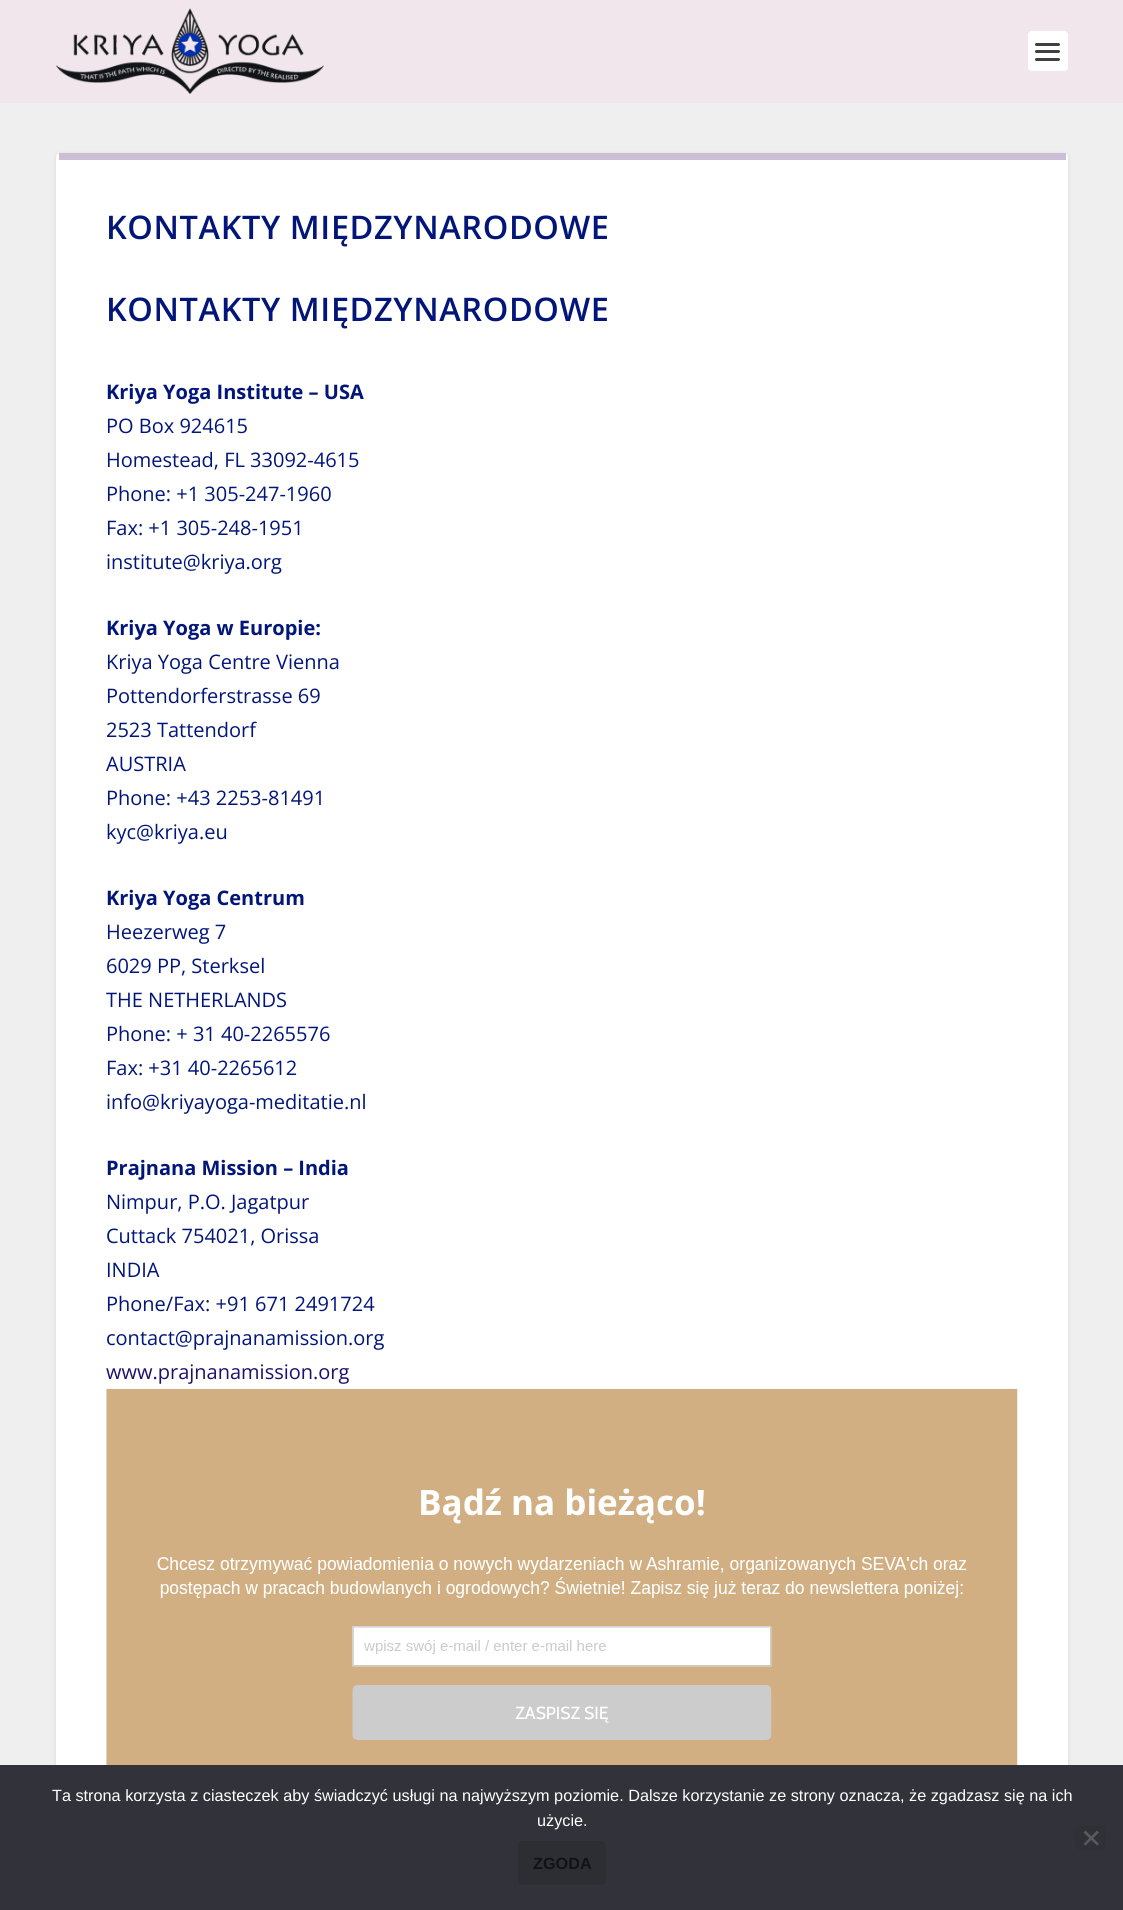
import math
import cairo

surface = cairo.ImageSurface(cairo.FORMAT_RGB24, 1123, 1910)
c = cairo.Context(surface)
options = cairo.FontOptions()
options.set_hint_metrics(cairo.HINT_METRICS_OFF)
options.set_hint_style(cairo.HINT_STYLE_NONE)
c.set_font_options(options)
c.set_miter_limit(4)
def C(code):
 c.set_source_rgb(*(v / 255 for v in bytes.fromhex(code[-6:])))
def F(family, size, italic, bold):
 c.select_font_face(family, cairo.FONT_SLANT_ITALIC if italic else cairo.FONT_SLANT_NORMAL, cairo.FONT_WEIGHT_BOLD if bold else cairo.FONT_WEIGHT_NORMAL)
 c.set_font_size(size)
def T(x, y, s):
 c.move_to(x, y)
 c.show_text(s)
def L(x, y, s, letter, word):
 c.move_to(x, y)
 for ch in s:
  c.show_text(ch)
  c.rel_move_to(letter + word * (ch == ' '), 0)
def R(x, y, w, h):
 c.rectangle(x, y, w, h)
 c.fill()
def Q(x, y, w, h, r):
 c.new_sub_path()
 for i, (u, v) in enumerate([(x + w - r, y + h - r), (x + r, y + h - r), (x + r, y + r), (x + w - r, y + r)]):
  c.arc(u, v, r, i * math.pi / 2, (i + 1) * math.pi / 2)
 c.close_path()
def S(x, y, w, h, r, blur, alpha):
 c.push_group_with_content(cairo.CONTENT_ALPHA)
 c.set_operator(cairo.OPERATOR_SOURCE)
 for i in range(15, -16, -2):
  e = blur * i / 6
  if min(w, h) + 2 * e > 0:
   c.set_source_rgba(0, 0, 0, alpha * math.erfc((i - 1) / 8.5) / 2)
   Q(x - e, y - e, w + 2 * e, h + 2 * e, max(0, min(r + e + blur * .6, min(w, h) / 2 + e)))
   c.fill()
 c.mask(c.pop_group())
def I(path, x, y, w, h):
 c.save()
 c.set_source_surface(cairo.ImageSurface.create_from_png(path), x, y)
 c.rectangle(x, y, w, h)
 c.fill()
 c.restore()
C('efefef')
c.paint()
C('f0e6ec')
R(0,0,1123,103)
I('1.png',56,8,268,86)
C('ffffff')
Q(1028,31,40,40,4)
c.fill()
C('404040')
Q(1035,43,25,3,1.5)
c.fill()
Q(1035,50,25,3,1.5)
c.fill()
Q(1035,58,25,3,1.5)
c.fill()
C('000000')
S(56,154,1012,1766,4,2,.1)
C('ffffff')
Q(56,153,1012,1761,4)
c.fill()
C('cdbed8')
R(59,153,1007,7)
F('Open Sans SemiBold',32.5,0,0)
C('02167a')
L(106,239,'KONTAKTY MIĘDZYNARODOWE',.6,0)
L(106,321,'KONTAKTY MIĘDZYNARODOWE',.6,0)
F('Open Sans',20,0,1)
T(106,399,'Kriya Yoga Institute – USA')
F('Open Sans',20,0,0)
T(106,433,'PO Box 924615')
T(106,467,'Homestead, FL 33092-4615')
T(106,501,'Phone: +1 305-247-1960')
T(106,535,'Fax: +1 305-248-1951')
T(106,569,'institute@kriya.org')
F('Open Sans',20,0,1)
T(106,635,'Kriya Yoga w Europie:')
F('Open Sans',20,0,0)
T(106,669,'Kriya Yoga Centre Vienna')
T(106,703,'Pottendorferstrasse 69')
T(106,737,'2523 Tattendorf')
T(106,771,'AUSTRIA')
T(106,805,'Phone: +43 2253-81491')
T(106,839,'kyc@kriya.eu')
F('Open Sans',20,0,1)
T(106,905,'Kriya Yoga Centrum')
F('Open Sans',20,0,0)
T(106,939,'Heezerweg 7')
T(106,973,'6029 PP, Sterksel')
T(106,1007,'THE NETHERLANDS')
T(106,1041,'Phone: + 31 40-2265576')
T(106,1075,'Fax: +31 40-2265612')
T(106,1109,'info@kriyayoga-meditatie.nl')
F('Open Sans',20,0,1)
T(106,1175,'Prajnana Mission – India')
F('Open Sans',20,0,0)
T(106,1209,'Nimpur, P.O. Jagatpur')
T(106,1243,'Cuttack 754021, Orissa')
T(106,1277,'INDIA')
T(106,1311,'Phone/Fax: +91 671 2491724')
T(106,1345,'contact@prajnanamission.org')
C('1b1171')
T(106,1379,'www.prajnanamission.org')
I('2.png',106,1388,912,377)
C('32323a')
R(0,1765,1123,145)
F('Liberation Sans',16.25,0,0)
C('ffffff')
T(52,1801,'Ta strona korzysta z ciasteczek aby świadczyć usługi na najwyższym poziomie. Dalsze korzystanie ze strony oznacza, że zgadzasz się na ich')
T(537,1826,'użycie.')
C('303037')
Q(1075,1825,30,25,4)
c.fill()
C('59595d')
c.new_path()
c.move_to(1097,1830.5)
c.line_to(1099,1832.5)
c.line_to(1085.5,1845.5)
c.line_to(1083.5,1844)
c.close_path()
c.fill()
c.new_path()
c.move_to(1083.5,1832.5)
c.line_to(1085.5,1830.5)
c.line_to(1099,1844)
c.line_to(1097,1845.5)
c.close_path()
c.fill()
C('2d2d34')
Q(518,1841,88,44,4)
c.fill()
F('Liberation Sans',16.25,0,1)
C('121215')
T(533,1869,'ZGODA')
surface.write_to_png('o.png')
